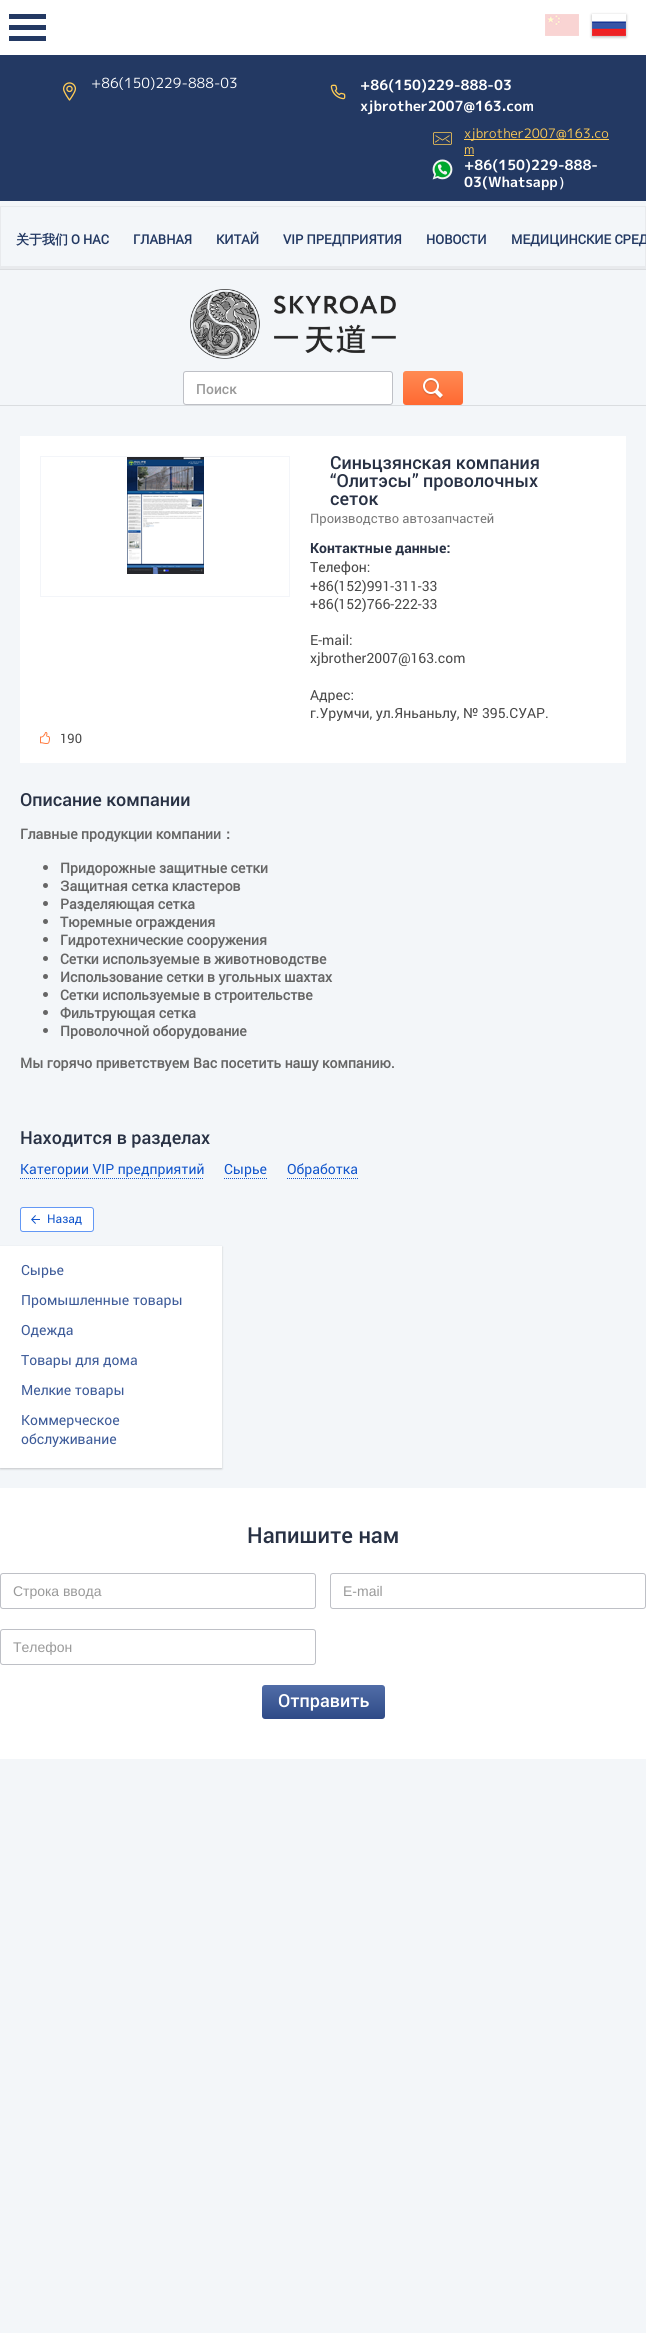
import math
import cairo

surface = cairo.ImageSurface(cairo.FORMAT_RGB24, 646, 2333)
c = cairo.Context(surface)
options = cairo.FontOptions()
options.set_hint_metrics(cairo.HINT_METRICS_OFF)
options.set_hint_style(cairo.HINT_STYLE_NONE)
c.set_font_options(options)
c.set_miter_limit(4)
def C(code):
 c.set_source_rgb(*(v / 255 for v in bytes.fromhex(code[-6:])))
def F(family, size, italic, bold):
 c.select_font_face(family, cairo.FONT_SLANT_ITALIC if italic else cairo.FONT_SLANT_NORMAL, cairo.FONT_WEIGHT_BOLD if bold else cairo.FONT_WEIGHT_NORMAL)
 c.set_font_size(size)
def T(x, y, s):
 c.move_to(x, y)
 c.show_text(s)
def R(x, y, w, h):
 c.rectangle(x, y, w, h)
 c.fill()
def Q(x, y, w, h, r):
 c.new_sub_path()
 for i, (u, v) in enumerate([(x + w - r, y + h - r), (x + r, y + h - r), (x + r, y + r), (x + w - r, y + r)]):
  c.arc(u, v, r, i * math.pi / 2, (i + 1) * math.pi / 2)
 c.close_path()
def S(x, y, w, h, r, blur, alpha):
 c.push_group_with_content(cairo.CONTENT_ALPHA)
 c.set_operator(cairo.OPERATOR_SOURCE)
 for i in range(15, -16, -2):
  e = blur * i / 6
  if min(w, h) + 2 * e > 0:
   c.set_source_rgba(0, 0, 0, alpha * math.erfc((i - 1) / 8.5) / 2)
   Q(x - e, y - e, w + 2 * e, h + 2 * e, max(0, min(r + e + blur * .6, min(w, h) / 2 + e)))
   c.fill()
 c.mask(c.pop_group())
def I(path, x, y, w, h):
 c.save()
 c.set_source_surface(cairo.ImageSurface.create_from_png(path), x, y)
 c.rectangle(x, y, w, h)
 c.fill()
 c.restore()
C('f3f6f9')
c.paint()
C('ffffff')
R(0,0,646,55)
C('233963')
R(9,14,37,5)
R(9,25,37,5)
R(9,36,37,5)
I('1.png',545,14,34,22)
c.save()
c.set_fill_rule(cairo.FILL_RULE_EVEN_ODD)
c.new_path()
c.move_to(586,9)
c.line_to(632,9)
c.line_to(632,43)
c.line_to(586,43)
c.close_path()
c.move_to(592,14)
c.line_to(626,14)
c.line_to(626,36)
c.line_to(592,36)
c.close_path()
c.clip()
C('000000')
S(592,15,34,22,0,1.5,.3)
c.restore()
I('2.png',592,21,34,15)
R(0,55,646,146)
I('3.png',62,82,15,19)
F('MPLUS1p',14,0,0)
C('ffffff')
T(91,88,'+86(150)229-888-03')
I('4.png',330,84,16,16)
F('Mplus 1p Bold',14,0,1)
T(360,90,'+86(150)229-888-03')
T(360,111,'xjbrother2007@163.com')
I('5.png',433,132,19,13)
C('ffcc56')
R(464,139,145,1)
F('MPLUS1p',13,0,0)
T(464,138,'xjbrother2007@163.co')
T(464,154,'m')
R(464,155,10,1)
I('6.png',432,159,21,21)
F('Mplus 1p Bold',14,0,1)
C('ffffff')
T(464,170,'+86(150)229-888-')
T(464,187,'03(Whatsapp')
F('WenQuanYi Zen Hei',14,0,1)
T(558,187,'）')
C('dbdde0')
R(0,269,646,1)
C('e7eaed')
c.new_path()
c.move_to(0,206)
c.line_to(646,206)
c.line_to(645,207)
c.line_to(1,207)
c.close_path()
c.fill()
c.set_source_rgba(0,0,0,0.05)
c.new_path()
c.move_to(646,206)
c.line_to(646,269)
c.line_to(645,266)
c.line_to(645,207)
c.close_path()
c.fill()
c.new_path()
c.move_to(646,269)
c.line_to(0,269)
c.line_to(1,266)
c.line_to(645,266)
c.close_path()
c.fill()
c.new_path()
c.move_to(0,269)
c.line_to(0,206)
c.line_to(1,207)
c.line_to(1,266)
c.close_path()
c.fill()
F('WenQuanYi Zen Hei',13,0,1)
C('233963')
T(16,244,'关于我们')
F('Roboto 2',13,0,1)
T(71,244,'О НАС')
T(133,244,'ГЛАВНАЯ')
T(216,244,'КИТАЙ')
T(283,244,'VIP ПРЕДПРИЯТИЯ')
T(426,244,'НОВОСТИ')
T(511,244,'МЕДИЦИНСКИЕ СРЕД')
C('dadde0')
R(0,405,646,1)
I('7.png',190,289,206,70)
C('ffffff')
Q(183.5,371.5,209,33,2.5)
c.fill_preserve()
C('bec0c6')
c.set_line_width(1)
c.stroke()
F('Roboto Medium',14,0,0)
C('999999')
T(196,394,'Поиск')
gradient = cairo.LinearGradient(433,405,433,371)
gradient.add_color_stop_rgba(0,1,0.408,0.196,1)
gradient.add_color_stop_rgba(1,1,0.545,0.325,1)
c.set_source(gradient)
Q(403,371,60,34,3)
c.fill()
I('8.png',422,378,21,21)
C('ffffff')
R(20,436,606,327)
c.rectangle(40.5,456.5,249,140)
C('f3f5f9')
c.stroke()
I('9.png',127,457,77,117)
F('Roboto Medium',18,0,0)
C('283144')
T(330,469,'Cиньцзянская компания')
T(330,487,'“Олитэсы” проволочных')
T(330,505,'сеток')
F('Roboto',13,0,0)
C('787878')
T(310,523,'Производство автозапчастей')
F('Roboto',14,0,1)
C('283144')
T(310,553,'Контактные данные:')
F('Roboto',14,0,0)
C('484848')
T(310,572,'Телефон:')
T(310,591,'+86(152)991-311-33')
T(310,609,'+86(152)766-222-33')
T(310,645,'E-mail:')
T(310,663,'xjbrother2007@163.com')
T(310,700,'Адрес:')
T(310,718,'г.Урумчи, ул.Яньаньлу, № 395.СУАР.')
I('10.png',40,732,10,12)
F('Roboto',13,0,0)
T(60,743,'190')
F('Roboto Medium',18,0,0)
C('283144')
T(20,806,'Описание компании')
F('Roboto 2',14,0,1)
C('666666')
T(20,839,'Главные продукции компании')
F('WenQuanYi Zen Hei',14,0,1)
T(221,839,'：')
c.new_path()
c.arc(45.5,867.5,2.5,0,2 * math.pi)
c.fill()
F('Roboto 2',14,0,1)
T(60,873,'Придорожные защитные сетки')
c.new_path()
c.arc(45.5,885.5,2.5,0,2 * math.pi)
c.fill()
T(60,891,'Защитная сетка кластеров')
c.new_path()
c.arc(45.5,903.5,2.5,0,2 * math.pi)
c.fill()
T(60,909,'Разделяющая сетка')
c.new_path()
c.arc(45.5,921.5,2.5,0,2 * math.pi)
c.fill()
T(60,927,'Тюремные ограждения')
c.new_path()
c.arc(45.5,939.5,2.5,0,2 * math.pi)
c.fill()
T(60,945,'Гидротехнические сооружения')
c.new_path()
c.arc(45.5,958.5,2.5,0,2 * math.pi)
c.fill()
T(60,964,'Сетки используемые в животноводстве')
c.new_path()
c.arc(45.5,976.5,2.5,0,2 * math.pi)
c.fill()
T(60,982,'Использование сетки в угольных шахтах')
c.new_path()
c.arc(45.5,994.5,2.5,0,2 * math.pi)
c.fill()
T(60,1000,'Сетки используемые в строительстве')
c.new_path()
c.arc(45.5,1012.5,2.5,0,2 * math.pi)
c.fill()
T(60,1018,'Фильтрующая сетка')
c.new_path()
c.arc(45.5,1030.5,2.5,0,2 * math.pi)
c.fill()
T(60,1036,'Проволочной оборудование')
T(20,1068,'Мы горячо приветствуем Вас посетить нашу компанию.')
F('Roboto Medium',18,0,0)
C('283144')
T(20,1144,'Находится в разделах')
c.new_path()
c.move_to(20,1178.5)
c.line_to(204,1178.5)
C('1155cc')
c.set_dash([1,1])
c.stroke()
F('Roboto',14,0,0)
T(20,1174,'Категории VIP предприятий')
c.new_path()
c.move_to(224,1178.5)
c.line_to(267,1178.5)
c.stroke()
T(224,1174,'Сырье')
c.new_path()
c.move_to(287,1178.5)
c.line_to(358,1178.5)
c.stroke()
T(287,1174,'Обработка')
C('ffffff')
Q(20.5,1207.5,73,24,2.5)
c.fill_preserve()
C('6398f5')
c.set_dash([])
c.stroke()
I('11.png',31,1215,9,9)
F('Roboto',12,0,0)
C('1155cc')
T(47,1223,'Назад')
C('000000')
S(0,1247,222,222,0,1,.2)
C('ffffff')
R(0,1246,222,222)
F('Roboto',14,0,0)
C('3d5b99')
T(21,1275,'Сырье')
T(21,1305,'Промышленные товары')
T(21,1335,'Одежда')
T(21,1365,'Товары для дома')
T(21,1395,'Мелкие товары')
T(21,1425,'Коммерческое')
T(21,1444,'обслуживание')
C('ffffff')
R(0,1488,646,271)
F('Roboto Medium',22,0,0)
C('283144')
T(247,1543,'Напишите нам')
Q(.5,1573.5,315,35,2.5)
C('bec0c6')
c.stroke()
F('Liberation Sans',14,0,0)
C('999999')
T(13,1596,'Строка ввода')
Q(330.5,1573.5,315,35,2.5)
C('bec0c6')
c.stroke()
C('999999')
T(343,1596,'E-mail')
Q(.5,1629.5,315,35,2.5)
C('bec0c6')
c.stroke()
C('999999')
T(13,1652,'Телефон')
gradient = cairo.LinearGradient(324,1719,324,1685)
gradient.add_color_stop_rgba(0,0.184,0.29,0.529,1)
gradient.add_color_stop_rgba(1,0.314,0.427,0.655,1)
c.set_source(gradient)
Q(262,1685,123,34,3)
c.fill()
F('Roboto Medium',18,0,0)
C('ffffff')
T(278,1707,'Отправить')
surface.write_to_png('o.png')
